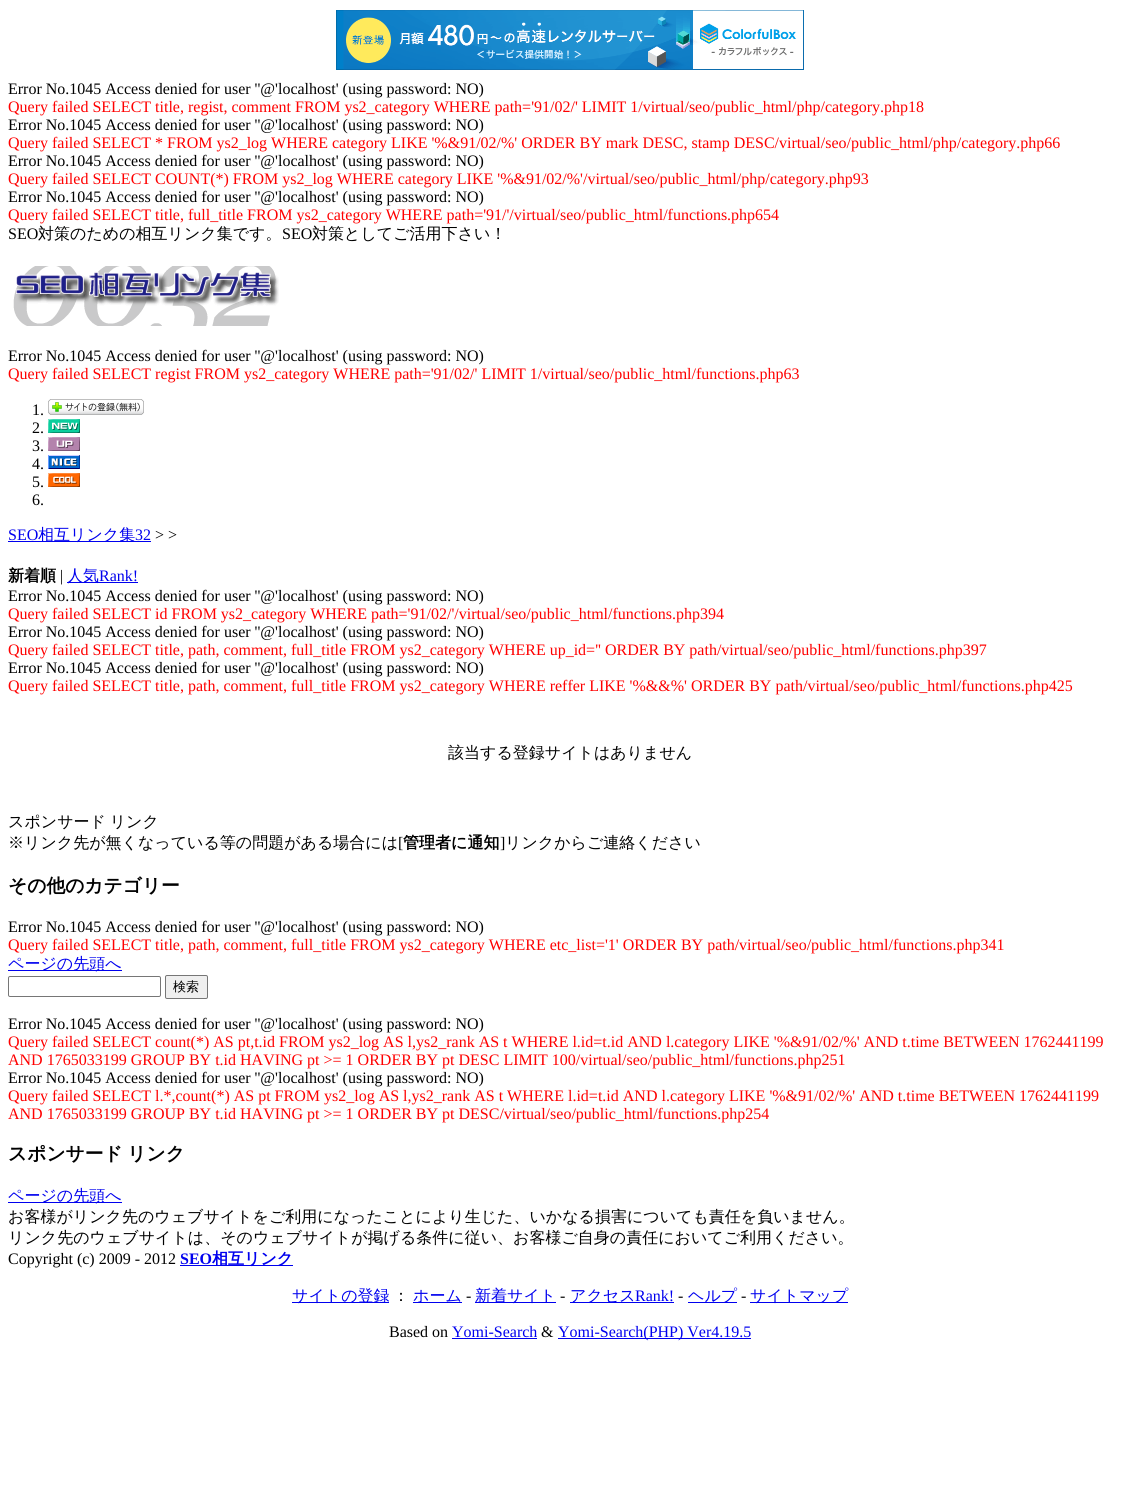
import math
import cairo

surface = cairo.ImageSurface(cairo.FORMAT_RGB24, 1140, 1508)
c = cairo.Context(surface)
options = cairo.FontOptions()
options.set_hint_metrics(cairo.HINT_METRICS_OFF)
options.set_hint_style(cairo.HINT_STYLE_NONE)
c.set_font_options(options)
c.set_miter_limit(4)
def C(code):
 c.set_source_rgb(*(v / 255 for v in bytes.fromhex(code[-6:])))
def F(family, size, italic, bold):
 c.select_font_face(family, cairo.FONT_SLANT_ITALIC if italic else cairo.FONT_SLANT_NORMAL, cairo.FONT_WEIGHT_BOLD if bold else cairo.FONT_WEIGHT_NORMAL)
 c.set_font_size(size)
def T(x, y, s):
 c.move_to(x, y)
 c.show_text(s)
def L(x, y, s, letter, word):
 c.move_to(x, y)
 for ch in s:
  c.show_text(ch)
  c.rel_move_to(letter + word * (ch == ' '), 0)
def R(x, y, w, h):
 c.rectangle(x, y, w, h)
 c.fill()
def Q(x, y, w, h, r):
 c.new_sub_path()
 for i, (u, v) in enumerate([(x + w - r, y + h - r), (x + r, y + h - r), (x + r, y + r), (x + w - r, y + r)]):
  c.arc(u, v, r, i * math.pi / 2, (i + 1) * math.pi / 2)
 c.close_path()
def I(path, x, y, w, h):
 c.save()
 c.set_source_surface(cairo.ImageSurface.create_from_png(path), x, y)
 c.rectangle(x, y, w, h)
 c.fill()
 c.restore()
C('ffffff')
c.paint()
I('1.png',336,10,468,60)
F('Liberation Serif',16,0,0)
C('000000')
T(8,94,'Error No.1045 Access denied for user \'\'@\'localhost\' (using password: NO)')
C('ff0000')
T(8,112,'Query failed SELECT title, regist, comment FROM ys2_category WHERE path=\'91/02/\' LIMIT 1/virtual/seo/public_html/php/category.php18')
C('000000')
T(8,130,'Error No.1045 Access denied for user \'\'@\'localhost\' (using password: NO)')
C('ff0000')
T(8,148,'Query failed SELECT * FROM ys2_log WHERE category LIKE \'%&91/02/%\' ORDER BY mark DESC, stamp DESC/virtual/seo/public_html/php/category.php66')
C('000000')
T(8,166,'Error No.1045 Access denied for user \'\'@\'localhost\' (using password: NO)')
C('ff0000')
T(8,184,'Query failed SELECT COUNT(*) FROM ys2_log WHERE category LIKE \'%&91/02/%\'/virtual/seo/public_html/php/category.php93')
C('000000')
T(8,202,'Error No.1045 Access denied for user \'\'@\'localhost\' (using password: NO)')
C('ff0000')
T(8,220,'Query failed SELECT title, full_title FROM ys2_category WHERE path=\'91/\'/virtual/seo/public_html/functions.php654')
C('000000')
T(8,239,'SEO')
F('WenQuanYi Zen Hei Medium',16,0,0)
T(38,239,'対策のための相互リンク集です。')
F('Liberation Serif',16,0,0)
T(282,239,'SEO')
F('WenQuanYi Zen Hei Medium',16,0,0)
T(312,239,'対策としてご活用下さい！')
I('2.png',13,266,266,60)
F('Liberation Serif',16,0,0)
T(8,361,'Error No.1045 Access denied for user \'\'@\'localhost\' (using password: NO)')
C('ff0000')
T(8,379,'Query failed SELECT regist FROM ys2_category WHERE path=\'91/02/\' LIMIT 1/virtual/seo/public_html/functions.php63')
C('000000')
T(32,415,'1.')
I('3.png',48,399,96,16)
T(32,433,'2.')
I('4.png',48,419,32,14)
T(32,451,'3.')
I('5.png',48,437,32,14)
T(32,469,'4.')
I('6.png',48,455,32,14)
T(32,487,'5.')
I('7.png',48,473,32,14)
T(32,505,'6.')
C('0000ee')
T(8,540,'SEO')
R(8,541,143,1)
F('WenQuanYi Zen Hei Medium',16,0,0)
T(38,540,'相互リンク集')
F('Liberation Serif',16,0,0)
T(135,540,'32')
C('000000')
T(155,540,'> >')
F('WenQuanYi Zen Hei',16,0,1)
T(8,581,'新着順')
F('Liberation Serif',16,0,0)
T(60,581,'|')
C('0000ee')
R(67,582,71,1)
F('WenQuanYi Zen Hei Medium',16,0,0)
T(67,581,'人気')
F('Liberation Serif',16,0,0)
T(99,581,'Rank!')
C('000000')
T(8,601,'Error No.1045 Access denied for user \'\'@\'localhost\' (using password: NO)')
C('ff0000')
T(8,619,'Query failed SELECT id FROM ys2_category WHERE path=\'91/02/\'/virtual/seo/public_html/functions.php394')
C('000000')
T(8,637,'Error No.1045 Access denied for user \'\'@\'localhost\' (using password: NO)')
C('ff0000')
T(8,655,'Query failed SELECT title, path, comment, full_title FROM ys2_category WHERE up_id=\'\' ORDER BY path/virtual/seo/public_html/functions.php397')
C('000000')
T(8,673,'Error No.1045 Access denied for user \'\'@\'localhost\' (using password: NO)')
C('ff0000')
T(8,691,'Query failed SELECT title, path, comment, full_title FROM ys2_category WHERE reffer LIKE \'%&&%\' ORDER BY path/virtual/seo/public_html/functions.php425')
F('WenQuanYi Zen Hei Medium',16,0,0)
C('000000')
T(448,758,'該当する登録サイトはありません')
L(8,827,'スポンサード リンク',0,-1)
T(8,848,'※リンク先が無くなっている等の問題がある場合には')
F('Liberation Serif',16,0,0)
T(398,848,'[')
F('WenQuanYi Zen Hei',16,0,1)
T(403,848,'管理者に通知')
F('Liberation Serif',16,0,0)
T(500,848,']')
F('WenQuanYi Zen Hei Medium',16,0,0)
T(505,848,'リンクからご連絡ください')
F('WenQuanYi Zen Hei',18.75,0,1)
T(8,892,'その他のカテゴリー')
F('Liberation Serif',16,0,0)
T(8,932,'Error No.1045 Access denied for user \'\'@\'localhost\' (using password: NO)')
C('ff0000')
T(8,950,'Query failed SELECT title, path, comment, full_title FROM ys2_category WHERE etc_list=\'1\' ORDER BY path/virtual/seo/public_html/functions.php341')
C('0000ee')
R(8,970,114,1)
F('WenQuanYi Zen Hei Medium',16,0,0)
T(8,969,'ページの先頭へ')
Q(8.5,976.5,152,20,1.5)
C('767676')
c.set_line_width(1)
c.stroke()
C('efefef')
Q(165.5,975.5,42,23,1.5)
c.fill_preserve()
C('767676')
c.stroke()
F('WenQuanYi Zen Hei Medium',13,0,0)
C('000000')
T(173,991,'検索')
F('Liberation Serif',16,0,0)
T(8,1029,'Error No.1045 Access denied for user \'\'@\'localhost\' (using password: NO)')
C('ff0000')
T(8,1047,'Query failed SELECT count(*) AS pt,t.id FROM ys2_log AS l,ys2_rank AS t WHERE l.id=t.id AND l.category LIKE \'%&91/02/%\' AND t.time BETWEEN 1762441199')
T(8,1065,'AND 1765033199 GROUP BY t.id HAVING pt >= 1 ORDER BY pt DESC LIMIT 100/virtual/seo/public_html/functions.php251')
C('000000')
T(8,1083,'Error No.1045 Access denied for user \'\'@\'localhost\' (using password: NO)')
C('ff0000')
T(8,1101,'Query failed SELECT l.*,count(*) AS pt FROM ys2_log AS l,ys2_rank AS t WHERE l.id=t.id AND l.category LIKE \'%&91/02/%\' AND t.time BETWEEN 1762441199')
T(8,1119,'AND 1765033199 GROUP BY t.id HAVING pt >= 1 ORDER BY pt DESC/virtual/seo/public_html/functions.php254')
F('WenQuanYi Zen Hei',18.75,0,1)
C('000000')
L(8,1160,'スポンサード リンク',0,-1)
C('0000ee')
R(8,1202,114,1)
F('WenQuanYi Zen Hei Medium',16,0,0)
T(8,1201,'ページの先頭へ')
C('000000')
T(8,1222,'お客様がリンク先のウェブサイトをご利用になったことにより生じた、いかなる損害についても責任を負いません。')
T(8,1243,'リンク先のウェブサイトは、そのウェブサイトが掲げる条件に従い、お客様ご自身の責任においてご利用ください。')
F('Liberation Serif',16,0,0)
T(8,1264,'Copyright (c) 2009 - 2012')
F('Liberation Serif',16,0,1)
C('0000ee')
T(180,1264,'SEO')
R(180,1265,113,1)
F('WenQuanYi Zen Hei',16,0,1)
T(212,1264,'相互リンク')
R(292,1302,97,1)
F('WenQuanYi Zen Hei Medium',16,0,0)
T(292,1301,'サイトの登録')
C('000000')
T(393,1301,'：')
C('0000ee')
R(413,1302,49,1)
T(413,1301,'ホーム')
F('Liberation Serif',16,0,0)
C('000000')
T(466,1301,'-')
C('0000ee')
R(475,1302,81,1)
F('WenQuanYi Zen Hei Medium',16,0,0)
T(475,1301,'新着サイト')
F('Liberation Serif',16,0,0)
C('000000')
T(560,1301,'-')
C('0000ee')
R(570,1302,104,1)
F('WenQuanYi Zen Hei Medium',16,0,0)
T(570,1301,'アクセス')
F('Liberation Serif',16,0,0)
T(635,1301,'Rank!')
C('000000')
T(678,1301,'-')
C('0000ee')
R(688,1302,49,1)
F('WenQuanYi Zen Hei Medium',16,0,0)
T(688,1301,'ヘルプ')
F('Liberation Serif',16,0,0)
C('000000')
T(741,1301,'-')
C('0000ee')
R(750,1302,98,1)
F('WenQuanYi Zen Hei Medium',16,0,0)
T(750,1301,'サイトマップ')
F('Liberation Serif',16,0,0)
C('000000')
T(389,1337,'Based on')
C('0000ee')
T(452,1337,'Yomi-Search')
R(452,1338,85,1)
C('000000')
T(541,1337,'&')
C('0000ee')
R(558,1338,193,1)
T(558,1337,'Yomi-Search(PHP) Ver4.19.5')
surface.write_to_png('o.png')
